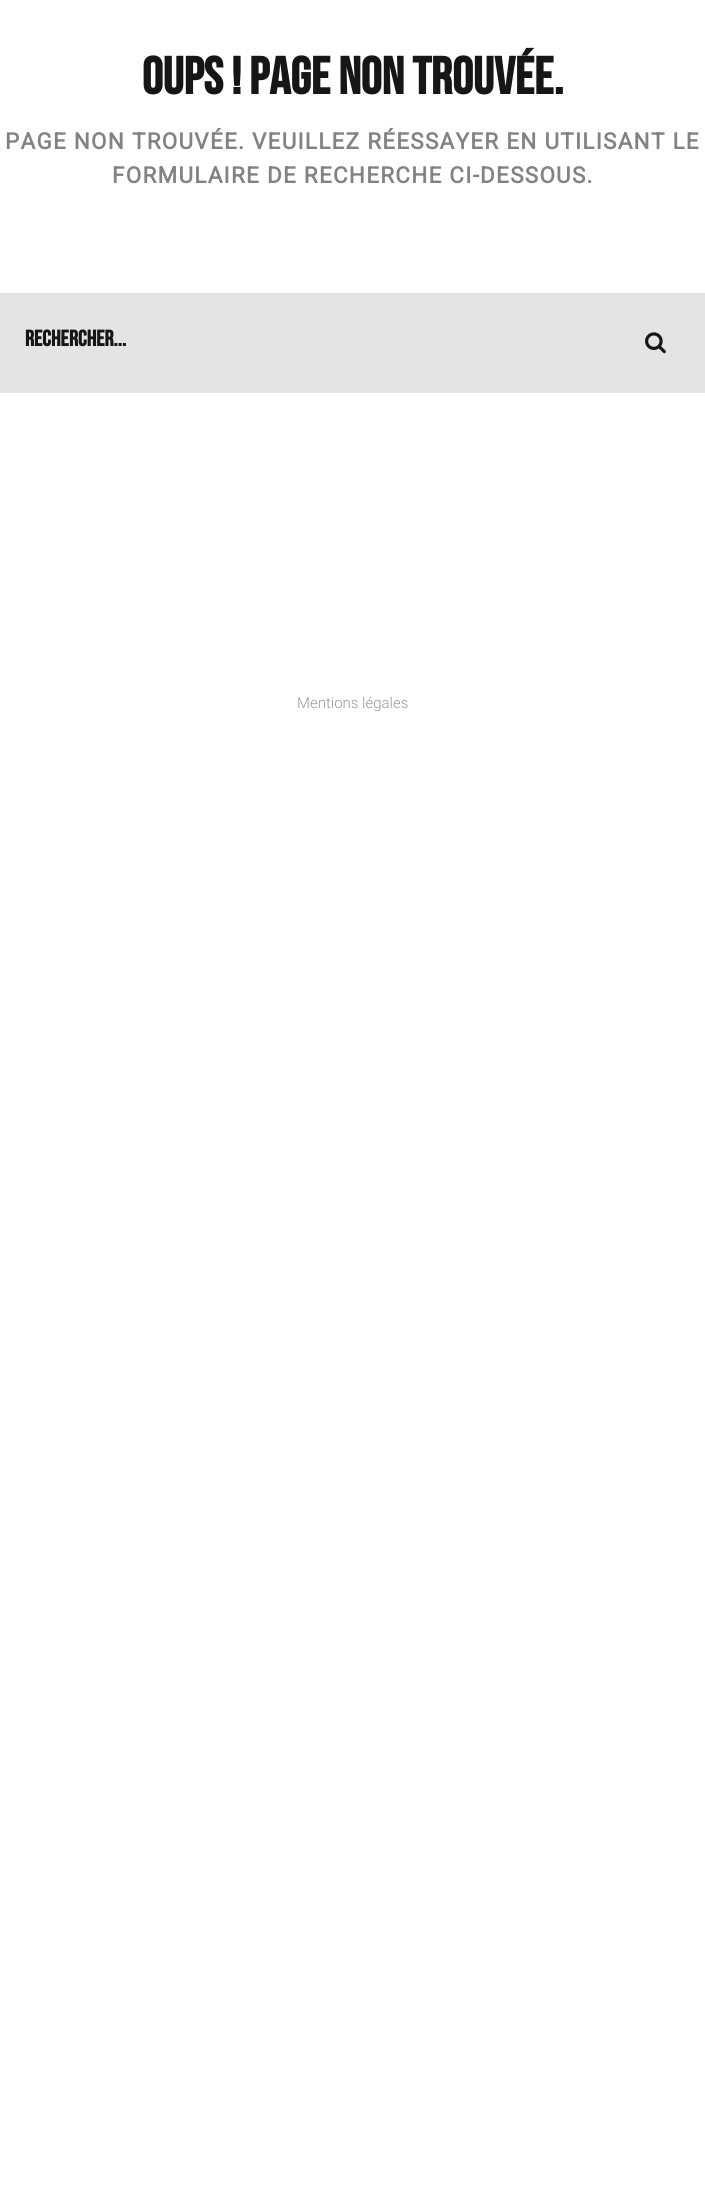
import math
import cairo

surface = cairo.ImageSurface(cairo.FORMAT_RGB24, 705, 2205)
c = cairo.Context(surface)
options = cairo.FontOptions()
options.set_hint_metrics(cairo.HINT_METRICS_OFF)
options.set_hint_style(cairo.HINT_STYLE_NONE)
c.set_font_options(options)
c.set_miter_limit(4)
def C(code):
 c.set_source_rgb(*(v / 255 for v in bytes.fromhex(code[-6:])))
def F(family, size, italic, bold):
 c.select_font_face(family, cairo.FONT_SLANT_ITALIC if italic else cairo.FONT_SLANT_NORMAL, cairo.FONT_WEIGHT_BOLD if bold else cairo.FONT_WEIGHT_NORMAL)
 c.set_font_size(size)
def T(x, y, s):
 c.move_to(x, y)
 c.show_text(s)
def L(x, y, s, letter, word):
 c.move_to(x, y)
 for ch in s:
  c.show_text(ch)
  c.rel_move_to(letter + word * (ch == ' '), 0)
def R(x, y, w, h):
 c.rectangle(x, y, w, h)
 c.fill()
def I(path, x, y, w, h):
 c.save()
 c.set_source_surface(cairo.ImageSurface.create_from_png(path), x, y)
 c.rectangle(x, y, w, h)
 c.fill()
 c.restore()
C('ffffff')
c.paint()
F('Bebas Neue',52.5,0,1)
C('161616')
T(142,94,'OUPS ! PAGE NON TROUVÉE.')
F('Roboto',22.5,0,1)
C('828282')
L(5,149,'PAGE NON TROUVÉE. VEUILLEZ RÉESSAYER EN UTILISANT LE',1.25,0)
L(112,183,'FORMULAIRE DE RECHERCHE CI-DESSOUS.',1.25,0)
C('e4e4e4')
R(0,293,705,100)
F('Bebas Neue',22.5,0,1)
C('161616')
T(25,346,'Rechercher...')
I('1.png',645,332,21,22)
F('Roboto Light',15,0,0)
C('999999')
T(297,708,'Mentions légales')
surface.write_to_png('o.png')
